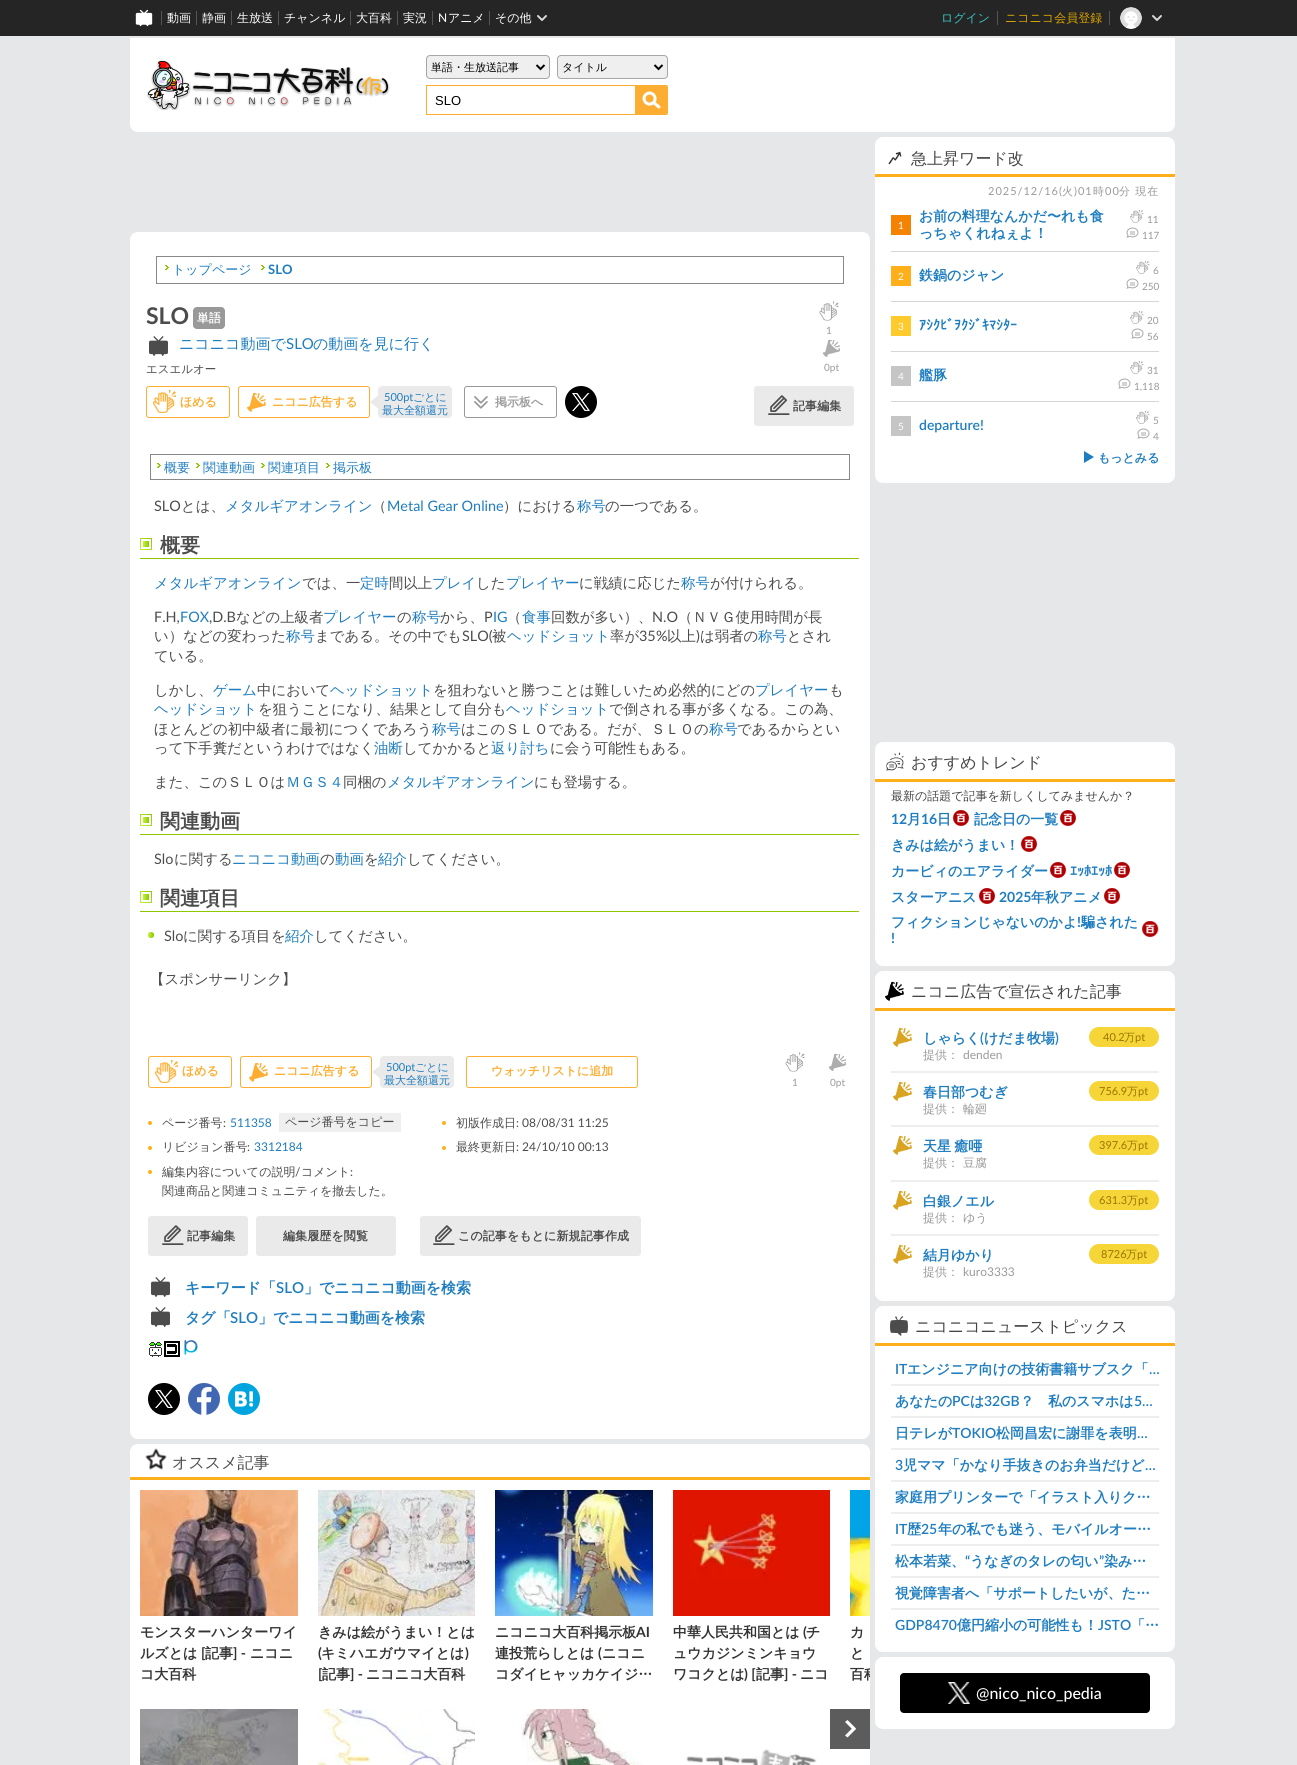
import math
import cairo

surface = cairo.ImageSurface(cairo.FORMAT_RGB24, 1297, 1765)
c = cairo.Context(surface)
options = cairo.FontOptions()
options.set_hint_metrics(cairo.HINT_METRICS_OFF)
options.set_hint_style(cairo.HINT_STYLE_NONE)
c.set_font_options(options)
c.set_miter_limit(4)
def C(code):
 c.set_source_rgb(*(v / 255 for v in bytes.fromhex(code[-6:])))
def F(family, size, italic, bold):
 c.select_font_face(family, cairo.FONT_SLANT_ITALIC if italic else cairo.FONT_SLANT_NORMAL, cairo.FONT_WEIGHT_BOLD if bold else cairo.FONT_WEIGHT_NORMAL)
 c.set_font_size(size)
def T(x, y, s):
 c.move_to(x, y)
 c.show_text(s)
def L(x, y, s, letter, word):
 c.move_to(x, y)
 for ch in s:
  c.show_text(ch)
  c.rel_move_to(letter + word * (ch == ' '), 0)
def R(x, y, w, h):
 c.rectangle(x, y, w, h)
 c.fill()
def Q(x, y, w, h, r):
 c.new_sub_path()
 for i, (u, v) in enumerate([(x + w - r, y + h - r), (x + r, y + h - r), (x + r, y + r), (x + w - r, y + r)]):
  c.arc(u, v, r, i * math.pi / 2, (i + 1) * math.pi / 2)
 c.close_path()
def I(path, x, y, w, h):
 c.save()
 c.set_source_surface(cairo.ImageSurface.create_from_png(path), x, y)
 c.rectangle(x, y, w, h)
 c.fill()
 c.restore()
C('e6e7e8')
c.paint()
C('252525')
R(0,0,1297,36)
I('1.png',135,9,18,18)
C('555555')
R(161,11,1,14)
F('WenQuanYi Zen Hei Medium',12,0,0)
C('ffffff')
T(167,22,'動画')
C('555555')
R(196,11,1,14)
C('ffffff')
T(202,22,'静画')
C('555555')
R(231,11,1,14)
C('ffffff')
T(237,22,'生放送')
C('555555')
R(278,11,1,14)
C('ffffff')
T(284,22,'チャンネル')
C('555555')
R(350,11,1,14)
C('ffffff')
T(356,22,'大百科')
C('555555')
R(397,11,1,14)
C('ffffff')
T(403,22,'実況')
C('555555')
R(432,11,1,14)
F('Lato',12,0,0)
C('ffffff')
T(438,22,'N')
F('WenQuanYi Zen Hei Medium',12,0,0)
T(448,22,'アニメ')
C('555555')
R(489,11,1,14)
C('ffffff')
T(495,22,'その他')
I('2.png',537,15,10,6)
C('39c4c1')
T(941,22,'ログイン')
C('555555')
R(997,11,1,14)
C('d9a300')
T(1005,22,'ニコニコ会員登録')
C('555555')
R(1109,11,1,14)
I('3.png',1120,7,22,22)
I('2.png',1152,15,10,6)
C('ffffff')
c.new_path()
c.move_to(130,38)
c.line_to(1175,38)
c.line_to(1175,124)
c.curve_to(1175,128.5,1171.5,132,1167,132)
c.line_to(138,132)
c.curve_to(133.5,132,130,128.5,130,124)
c.close_path()
c.fill()
I('4.png',146,60,244,50)
C('efefef')
Q(426.5,55.5,123,23,3.5)
c.fill_preserve()
C('a6a6a6')
c.set_line_width(1)
c.stroke()
c.new_path()
c.move_to(536.5,65)
c.line_to(540.5,69)
c.line_to(544.5,65)
C('000000')
c.set_line_width(2)
c.stroke()
F('WenQuanYi Zen Hei Medium',11,0,0)
T(431,71,'単語・生放送記事')
C('efefef')
Q(557.5,55.5,110,23,3.5)
c.fill_preserve()
C('a6a6a6')
c.set_line_width(1)
c.stroke()
c.new_path()
c.move_to(654.5,65)
c.line_to(658.5,69)
c.line_to(662.5,65)
C('000000')
c.set_line_width(2)
c.stroke()
T(562,71,'タイトル')
c.rectangle(426.5,85.5,209,29)
C('fdae32')
c.set_line_width(1)
c.stroke()
F('Liberation Sans',13,0,0)
C('000000')
T(435,105,'SLO')
I('5.png',636,85,32,30)
C('ffffff')
c.new_path()
c.move_to(138,232)
c.line_to(862,232)
c.curve_to(866.5,232,870,235.5,870,240)
c.line_to(870,378)
c.line_to(130,378)
c.line_to(130,240)
c.curve_to(130,235.5,133.5,232,138,232)
c.close_path()
c.fill()
c.rectangle(156.5,256.5,687,27)
C('888888')
c.stroke()
I('6.png',165,265,4,5)
F('WenQuanYi Zen Hei Medium',13,0,0)
C('1e7dc0')
T(172,274,'トップページ')
I('6.png',261,265,4,5)
F('Lato',13,0,1)
T(268,274,'SLO')
F('Lato',23,0,1)
C('4c4c4c')
T(146,324,'SLO')
C('999999')
Q(193,307,32,22,4)
c.fill()
F('WenQuanYi Zen Hei',12,0,1)
C('ffffff')
T(197,322,'単語')
I('7.png',149,336,19,20)
F('WenQuanYi Zen Hei Medium',15,0,0)
C('1e7dc0')
T(179,349,'ニコニコ動画で')
F('Lato',15,0,0)
T(286,349,'SLO')
F('WenQuanYi Zen Hei Medium',15,0,0)
T(313,349,'の動画を見に行く')
F('WenQuanYi Zen Hei Medium',11.5,0,0)
C('4c4c4c')
T(146,373,'エスエルオー')
I('8.png',819,301,20,20)
F('Lato',10,0,0)
C('999999')
T(826,334,'1')
I('9.png',822,339,18,18)
T(824,371,'0pt')
C('ffffff')
c.new_path()
c.move_to(130,378)
c.line_to(870,378)
c.line_to(870,1431)
c.curve_to(870,1435.5,866.5,1439,862,1439)
c.line_to(138,1439)
c.curve_to(133.5,1439,130,1435.5,130,1431)
c.close_path()
c.fill()
Q(146.5,386.5,83,31,2.5)
C('fdae32')
c.stroke()
I('10.png',153,390,23,23)
F('WenQuanYi Zen Hei',12,0,1)
T(180,406,'ほめる')
Q(238.5,386.5,131,31,2.5)
c.stroke()
I('11.png',247,392,19,20)
T(272,406,'ニコニ広告する')
C('eaeaea')
Q(378,386,74,32,4)
c.fill()
c.new_path()
c.move_to(380,394)
c.line_to(380,410)
c.line_to(370,402)
c.close_path()
c.fill()
F('Lato',11,0,0)
C('1e7dc0')
T(384,401,'500pt')
F('WenQuanYi Zen Hei Medium',11,0,0)
T(413,401,'ごとに')
T(382,414,'最大全額還元')
Q(464.5,386.5,92,31,2.5)
C('999999')
c.stroke()
I('12.png',474,396,14,13)
F('WenQuanYi Zen Hei',12,0,1)
T(495,406,'掲示板へ')
C('000000')
c.new_path()
c.arc(581,402,16,0,2 * math.pi)
c.fill()
I('13.png',572,393,18,18)
C('eaeaea')
Q(754,386,100,40,3)
c.fill()
I('14.png',768,395,22,20)
C('4c4c4c')
L(793,410,'記事編集',.1,0)
c.rectangle(150.5,454.5,699,25)
C('888888')
c.stroke()
I('6.png',157,463,4,5)
F('WenQuanYi Zen Hei Medium',13,0,0)
C('1e7dc0')
T(164,472,'概要')
I('6.png',196,463,4,5)
T(203,472,'関連動画')
I('6.png',261,463,4,5)
T(268,472,'関連項目')
I('6.png',326,463,4,5)
T(333,472,'掲示板')
F('Lato',14.4,0,0)
C('4c4c4c')
T(154,511,'SLO')
F('WenQuanYi Zen Hei Medium',14.4,0,0)
T(181,511,'とは、')
C('1e7dc0')
T(225,511,'メタルギアオンライン')
C('4c4c4c')
T(372,511,'（')
F('Lato',14.4,0,0)
C('1e7dc0')
T(387,511,'Metal Gear Online')
F('WenQuanYi Zen Hei Medium',14.4,0,0)
C('4c4c4c')
T(503,511,'）における')
C('1e7dc0')
T(577,511,'称号')
C('4c4c4c')
T(605,511,'の一つである。')
I('15.png',140,538,12,12)
C('8cc700')
R(140,558,719,1)
F('WenQuanYi Zen Hei',20,0,1)
C('4c4c4c')
T(160,552,'概要')
F('WenQuanYi Zen Hei Medium',14.4,0,0)
C('1e7dc0')
T(154,588,'メタルギアオンライン')
C('4c4c4c')
T(302,588,'では、一')
C('1e7dc0')
T(360,588,'定時')
C('4c4c4c')
T(389,588,'間以上')
C('1e7dc0')
T(432,588,'プレイ')
C('4c4c4c')
T(476,588,'した')
C('1e7dc0')
T(506,588,'プレイヤー')
C('4c4c4c')
T(579,588,'に戦績に応じた')
C('1e7dc0')
T(681,588,'称号')
C('4c4c4c')
T(710,588,'が付けられる。')
F('Lato',14.4,0,0)
T(154,622,'F.H,')
C('1e7dc0')
T(180,622,'FOX')
C('4c4c4c')
T(209,622,',D.B')
F('WenQuanYi Zen Hei Medium',14.4,0,0)
T(236,622,'などの上級者')
C('1e7dc0')
T(323,622,'プレイヤー')
C('4c4c4c')
T(397,622,'の')
C('1e7dc0')
T(412,622,'称号')
C('4c4c4c')
T(440,622,'から、')
F('Lato',14.4,0,0)
T(484,622,'P')
C('1e7dc0')
T(493,622,'IG')
F('WenQuanYi Zen Hei Medium',14.4,0,0)
C('4c4c4c')
T(507,622,'（')
C('1e7dc0')
T(522,622,'食事')
C('4c4c4c')
T(551,622,'回数が多い）、')
F('Lato',14.4,0,0)
T(652,622,'N.O')
F('WenQuanYi Zen Hei Medium',14.4,0,0)
T(678,622,'（ＮＶＧ使用時間が長')
T(154,641,'い）などの変わった')
C('1e7dc0')
T(286,641,'称号')
C('4c4c4c')
T(315,641,'まである。その中でも')
F('Lato',14.4,0,0)
T(462,641,'SLO(')
F('WenQuanYi Zen Hei Medium',14.4,0,0)
T(492,641,'被')
C('1e7dc0')
T(507,641,'ヘッドショット')
C('4c4c4c')
T(610,641,'率が')
F('Lato',14.4,0,0)
T(639,641,'35')
C('444444')
T(656,641,'%')
F('WenQuanYi Zen Hei Medium',14.4,0,0)
C('4c4c4c')
T(667,641,'以上')
F('Lato',14.4,0,0)
T(696,641,')')
F('WenQuanYi Zen Hei Medium',14.4,0,0)
T(700,641,'は弱者の')
C('1e7dc0')
T(758,641,'称号')
C('4c4c4c')
T(787,641,'とされ')
T(154,661,'ている。')
T(154,695,'しかし、')
C('1e7dc0')
T(213,695,'ゲーム')
C('4c4c4c')
T(257,695,'中において')
C('1e7dc0')
T(330,695,'ヘッドショット')
C('4c4c4c')
T(433,695,'を狙わないと勝つことは難しいため必然的にどの')
C('1e7dc0')
T(755,695,'プレイヤー')
C('4c4c4c')
T(829,695,'も')
C('1e7dc0')
T(154,714,'ヘッドショット')
C('4c4c4c')
T(258,714,'を狙うことになり、結果として自分も')
C('1e7dc0')
T(506,714,'ヘッドショット')
C('4c4c4c')
T(609,714,'で倒される事が多くなる。この為、')
T(154,734,'ほとんどの初中級者に最初につくであろう')
C('1e7dc0')
T(432,734,'称号')
C('4c4c4c')
T(461,734,'はこのＳＬＯである。だが、ＳＬＯの')
C('1e7dc0')
T(709,734,'称号')
C('4c4c4c')
T(737,734,'であるからとい')
T(154,753,'って下手')
C('444444')
T(213,753,'糞')
C('4c4c4c')
T(227,753,'だというわけではなく')
C('1e7dc0')
T(374,753,'油断')
C('4c4c4c')
T(403,753,'してかかると')
C('1e7dc0')
T(491,753,'返り討ち')
C('4c4c4c')
T(550,753,'に会う可')
C('444444')
T(608,753,'能')
C('4c4c4c')
T(622,753,'性もある。')
T(154,787,'また、このＳＬＯは')
C('1e7dc0')
T(286,787,'ＭＧＳ４')
C('4c4c4c')
T(343,787,'同梱の')
C('1e7dc0')
T(387,787,'メタルギアオンライン')
C('4c4c4c')
T(534,787,'にも登場する。')
I('15.png',140,814,12,12)
C('8cc700')
R(140,834,719,1)
F('WenQuanYi Zen Hei',20,0,1)
C('4c4c4c')
T(160,828,'関連動画')
F('Lato',14.4,0,0)
T(154,864,'Slo')
F('WenQuanYi Zen Hei Medium',14.4,0,0)
T(174,864,'に関する')
C('1e7dc0')
T(232,864,'ニコニコ動画')
C('4c4c4c')
T(320,864,'の')
C('1e7dc0')
T(335,864,'動画')
C('4c4c4c')
T(364,864,'を')
C('1e7dc0')
T(378,864,'紹介')
C('4c4c4c')
T(407,864,'してください。')
I('15.png',140,891,12,12)
C('8cc700')
R(140,911,719,1)
F('WenQuanYi Zen Hei',20,0,1)
C('4c4c4c')
T(160,905,'関連項目')
I('16.png',148,932,6,6)
F('Lato',14.4,0,0)
T(164,941,'Slo')
F('WenQuanYi Zen Hei Medium',14.4,0,0)
T(183,941,'に関する項')
C('444444')
T(256,941,'目')
C('4c4c4c')
T(271,941,'を')
C('1e7dc0')
T(285,941,'紹介')
C('4c4c4c')
T(314,941,'してください。')
T(150,984,'【スポンサーリンク】')
Q(148.5,1056.5,83,31,2.5)
C('fdae32')
c.stroke()
I('10.png',155,1060,23,23)
F('WenQuanYi Zen Hei',12,0,1)
T(182,1075,'ほめる')
Q(240.5,1056.5,131,31,2.5)
c.stroke()
I('11.png',249,1062,19,20)
T(274,1075,'ニコニ広告する')
C('eaeaea')
Q(380,1056,74,32,4)
c.fill()
c.new_path()
c.move_to(382,1064)
c.line_to(382,1080)
c.line_to(372,1072)
c.close_path()
c.fill()
F('Lato',11,0,0)
C('1e7dc0')
T(386,1071,'500pt')
F('WenQuanYi Zen Hei Medium',11,0,0)
T(415,1071,'ごとに')
T(384,1084,'最大全額還元')
Q(466.5,1056.5,171,31,2.5)
C('fdae32')
c.stroke()
F('WenQuanYi Zen Hei',12,0,1)
T(491,1075,'ウォッチリストに追加')
I('17.png',785,1052,20,20)
F('Lato',10,0,0)
C('999999')
T(792,1086,'1')
I('18.png',828,1053,18,18)
T(830,1086,'0pt')
C('ffaf19')
c.new_path()
c.arc(150,1123,2,0,2 * math.pi)
c.fill()
F('WenQuanYi Zen Hei Medium',12,0,0)
C('4c4c4c')
T(162,1127,'ページ番号')
F('Lato',12,0,0)
T(223,1127,':')
C('1e7dc0')
T(230,1127,'511358')
C('efefef')
R(279,1113,122,19)
F('WenQuanYi Zen Hei Medium',12,0,0)
C('4c4c4c')
T(285,1126,'ページ番号をコピー')
C('ffaf19')
c.new_path()
c.arc(444,1123,2,0,2 * math.pi)
c.fill()
C('4c4c4c')
T(456,1127,'初版作成日')
F('Lato',12,0,0)
T(516,1127,': 08/08/31 11:25')
C('ffaf19')
c.new_path()
c.arc(150,1148,2,0,2 * math.pi)
c.fill()
F('WenQuanYi Zen Hei Medium',12,0,0)
C('4c4c4c')
T(162,1151,'リビジョン番号')
F('Lato',12,0,0)
T(247,1151,':')
C('1e7dc0')
T(254,1151,'3312184')
C('ffaf19')
c.new_path()
c.arc(444,1148,2,0,2 * math.pi)
c.fill()
F('WenQuanYi Zen Hei Medium',12,0,0)
C('4c4c4c')
T(456,1151,'最終更新日')
F('Lato',12,0,0)
T(516,1151,': 24/10/10 00:13')
C('ffaf19')
c.new_path()
c.arc(150,1172,2,0,2 * math.pi)
c.fill()
F('WenQuanYi Zen Hei Medium',12,0,0)
C('4c4c4c')
T(162,1176,'編集内容についての説明')
F('Lato',12,0,0)
T(295,1176,'/')
F('WenQuanYi Zen Hei Medium',12,0,0)
T(301,1176,'コメント')
F('Lato',12,0,0)
T(350,1176,':')
F('WenQuanYi Zen Hei Medium',12,0,0)
T(162,1195,'関連商品と関連コミュニティを撤去した。')
C('eaeaea')
Q(148,1216,100,40,3)
c.fill()
I('14.png',162,1225,22,20)
F('WenQuanYi Zen Hei',12,0,1)
C('4c4c4c')
L(187,1240,'記事編集',.1,0)
C('eaeaea')
Q(256,1216,140,40,3)
c.fill()
C('4c4c4c')
L(283,1240,'編集履歴を閲覧',.1,0)
C('eaeaea')
Q(420,1216,221,40,3)
c.fill()
I('14.png',433,1225,22,20)
C('4c4c4c')
L(458,1240,'この記事をもとに新規記事作成',.1,0)
I('7.png',151,1277,19,20)
F('WenQuanYi Zen Hei',15,0,1)
C('1e7dc0')
T(185,1293,'キーワード「')
F('Lato SemiBold',15,0,0)
T(276,1293,'SLO')
F('WenQuanYi Zen Hei',15,0,1)
T(304,1293,'」でニコニコ動画を検索')
I('7.png',151,1307,19,20)
T(185,1323,'タグ「')
F('Lato SemiBold',15,0,0)
T(230,1323,'SLO')
F('WenQuanYi Zen Hei',15,0,1)
T(258,1323,'」でニコニコ動画を検索')
I('19.png',149,1342,13,15)
I('20.png',164,1341,16,16)
I('21.png',184,1340,14,15)
C('000000')
c.arc(164,1399,16,0,2 * math.pi)
c.fill()
I('13.png',155,1390,18,18)
C('4267b2')
c.arc(204,1399,16,0,2 * math.pi)
c.fill()
I('22.png',197,1387,15,28)
C('00a4de')
c.arc(244,1399,16,0,2 * math.pi)
c.fill()
I('23.png',235,1391,18,16)
C('ffffff')
Q(130,1444,740,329,8)
c.fill()
C('ffaf19')
R(130,1477,740,3)
I('24.png',145,1448,22,22)
F('WenQuanYi Zen Hei Medium',16,0,0)
C('4c4c4c')
T(172,1468,'オススメ記事')
I('25.png',140,1490,158,126)
F('WenQuanYi Zen Hei',14,0,1)
C('333333')
T(140,1637,'モンスターハンターワイ')
T(140,1658,'ルズとは')
F('Lato',14,0,1)
T(201,1658,'[')
F('WenQuanYi Zen Hei',14,0,1)
T(205,1658,'記事')
F('Lato',14,0,1)
T(233,1658,'] -')
F('WenQuanYi Zen Hei',14,0,1)
T(250,1658,'ニコニ')
T(140,1679,'コ大百科')
I('26.png',318,1490,157,126)
T(318,1637,'きみは絵がうまい！とは')
F('Lato',14,0,1)
T(318,1658,'(')
F('WenQuanYi Zen Hei',14,0,1)
T(321,1658,'キミハエガウマイとは')
F('Lato',14,0,1)
T(465,1658,')')
T(318,1679,'[')
F('WenQuanYi Zen Hei',14,0,1)
T(322,1679,'記事')
F('Lato',14,0,1)
T(350,1679,'] -')
F('WenQuanYi Zen Hei',14,0,1)
T(366,1679,'ニコニコ大百科')
I('27.png',495,1490,158,126)
T(495,1637,'ニコニコ大百科掲示板')
F('Lato',14,0,1)
T(636,1637,'AI')
F('WenQuanYi Zen Hei',14,0,1)
T(495,1658,'連投荒らしとは')
F('Lato',14,0,1)
T(598,1658,'(')
F('WenQuanYi Zen Hei',14,0,1)
T(602,1658,'ニコニ')
T(495,1679,'コダイヒャッカケイジ…')
I('28.png',673,1490,157,126)
T(673,1637,'中華人民共和国とは')
F('Lato',14,0,1)
T(803,1637,'(')
F('WenQuanYi Zen Hei',14,0,1)
T(806,1637,'チ')
T(673,1658,'ュウカジンミンキョウ')
T(673,1679,'ワコクとは')
F('Lato',14,0,1)
T(744,1679,') [')
F('WenQuanYi Zen Hei',14,0,1)
T(756,1679,'記事')
F('Lato',14,0,1)
T(784,1679,'] -')
F('WenQuanYi Zen Hei',14,0,1)
T(800,1679,'ニコ')
I('29.png',140,1709,158,56)
I('30.png',318,1709,157,56)
I('31.png',521,1709,122,56)
I('32.png',686,1749,132,16)
I('33.png',850,1490,20,126)
T(850,1637,'カ')
T(850,1658,'と')
c.save()
c.rectangle(850,1621,20,63)
c.clip()
T(850,1679,'百科')
c.restore()
C('5c5c5c')
R(830,1709,40,40)
C('ffffff')
c.new_path()
c.move_to(847.5,1720)
c.line_to(856,1728.5)
c.line_to(853.5,1730.5)
c.line_to(845,1722)
c.close_path()
c.fill()
c.new_path()
c.move_to(845,1735.5)
c.line_to(853.5,1727)
c.line_to(856,1729)
c.line_to(847.5,1737.5)
c.close_path()
c.fill()
Q(875,137,300,346,8)
c.fill()
C('ffaf19')
R(875,174,300,3)
I('34.png',888,151,14,14)
F('WenQuanYi Zen Hei Medium',16,0,0)
C('444444')
T(911,164,'急上昇ワード改')
F('Lato',11,0,0)
C('999999')
L(988,195,'2025/12/16(',1,0)
F('WenQuanYi Zen Hei Medium',11,0,0)
L(1062,195,'火',1,0)
F('Lato',11,0,0)
L(1074,195,')01',1,0)
F('WenQuanYi Zen Hei Medium',11,0,0)
L(1093,195,'時',1,0)
F('Lato',11,0,0)
L(1105,195,'00',1,0)
F('WenQuanYi Zen Hei Medium',11,0,0)
L(1119,195,'分 現在',1,0)
C('d6d6d6')
R(891,251,268,1)
C('f58200')
R(891,215,20,20)
F('Lato',10,0,0)
C('ffffff')
T(898,229,'1')
F('WenQuanYi Zen Hei',14,0,1)
C('1e7dc0')
T(919,221,'お前の料理なんかだ〜れも食')
T(919,238,'っちゃくれねぇよ！')
I('35.png',1130,210,14,13)
F('Lato',10,0,0)
C('999999')
T(1147,223,'11')
I('36.png',1126,227,13,11)
T(1142,239,'117')
C('d6d6d6')
R(891,301,268,1)
C('ffaf19')
R(891,266,20,20)
C('ffffff')
T(898,280,'2')
F('WenQuanYi Zen Hei',14,0,1)
C('1e7dc0')
T(919,280,'鉄鍋のジャン')
I('35.png',1136,261,14,13)
F('Lato',10,0,0)
C('999999')
T(1153,274,'6')
I('36.png',1126,278,13,11)
T(1142,290,'250')
C('d6d6d6')
R(891,351,268,1)
C('ffcb2c')
R(891,316,20,20)
C('ffffff')
T(898,330,'3')
F('IPAPGothic',14,0,1)
C('1e7dc0')
T(919,330,'ｱｼｸﾋﾞｦｸｼﾞｷﾏｼﾀｰ')
I('35.png',1130,311,14,13)
F('Lato',10,0,0)
C('999999')
T(1147,324,'20')
I('36.png',1131,328,13,11)
T(1147,340,'56')
C('d6d6d6')
R(891,401,268,1)
C('c5c5c5')
R(891,366,20,20)
C('ffffff')
T(898,380,'4')
F('WenQuanYi Zen Hei',14,0,1)
C('1e7dc0')
T(919,380,'艦豚')
I('35.png',1130,361,14,13)
F('Lato',10,0,0)
C('999999')
T(1147,374,'31')
I('36.png',1118,378,13,11)
T(1134,390,'1,118')
C('c5c5c5')
R(891,416,20,20)
C('ffffff')
T(898,430,'5')
F('Lato SemiBold',14,0,0)
C('1e7dc0')
T(919,430,'departure!')
I('35.png',1136,411,14,13)
F('Lato',10,0,0)
C('999999')
T(1153,424,'5')
I('36.png',1137,428,13,11)
T(1153,440,'4')
C('1e7dc0')
c.new_path()
c.move_to(1084,463)
c.line_to(1084,451)
c.line_to(1094,457)
c.close_path()
c.fill()
F('WenQuanYi Zen Hei',12,0,1)
T(1098,462,'もっとみる')
C('ffffff')
Q(875,742,300,224,8)
c.fill()
C('ffaf19')
R(875,779,300,3)
I('37.png',886,752,18,19)
F('WenQuanYi Zen Hei Medium',16,0,0)
C('444444')
T(911,768,'おすすめトレンド')
F('WenQuanYi Zen Hei Medium',12,0,0)
T(891,800,'最新の話題で記事を新しくしてみませんか？')
F('Lato',14,0,1)
C('1e7dc0')
T(891,824,'12')
F('WenQuanYi Zen Hei',14,0,1)
T(907,824,'月')
F('Lato',14,0,1)
T(921,824,'16')
F('WenQuanYi Zen Hei',14,0,1)
T(937,824,'日')
I('38.png',952,810,18,17)
T(974,824,'記念日の一覧')
I('38.png',1059,810,18,17)
T(891,850,'きみは絵がうまい！')
I('38.png',1020,836,18,17)
T(891,876,'カービィのエアライダー')
I('38.png',1049,862,18,17)
F('IPAPGothic',14,0,1)
T(1070,876,'ｴｯﾎｴｯﾎ')
I('38.png',1113,862,18,17)
F('WenQuanYi Zen Hei',14,0,1)
T(891,902,'スターアニス')
I('38.png',978,888,18,17)
F('Lato',14,0,1)
T(999,902,'2025')
F('WenQuanYi Zen Hei',14,0,1)
T(1031,902,'年秋アニメ')
I('38.png',1103,888,18,17)
T(891,927,'フィクションじゃないのかよ')
F('Lato',14,0,1)
T(1077,927,'!')
F('WenQuanYi Zen Hei',14,0,1)
T(1081,927,'騙された')
F('Lato',14,0,1)
T(891,943,'!')
I('39.png',1141,921,18,17)
C('ffffff')
Q(875,971,300,330,8)
c.fill()
C('ffaf19')
R(875,1008,300,3)
I('40.png',885,981,19,20)
F('WenQuanYi Zen Hei Medium',16,0,0)
C('444444')
T(911,997,'ニコニ広告で宣伝された記事')
C('eeeeee')
R(891,1071,268,2)
I('41.png',893,1027,19,20)
F('WenQuanYi Zen Hei',14,0,1)
C('1e7dc0')
T(923,1043,'しゃらく')
F('Lato SemiBold',14,0,0)
T(980,1043,'(')
F('WenQuanYi Zen Hei',14,0,1)
T(984,1043,'けだま牧場')
F('Lato SemiBold',14,0,0)
T(1055,1043,')')
F('WenQuanYi Zen Hei Medium',12,0,0)
C('999999')
T(923,1059,'提供：')
F('Lato',12,0,0)
T(963,1059,'denden')
C('f6d538')
Q(1089,1027,70,20,10)
c.fill()
F('Lato',11,0,0)
C('987600')
T(1103,1041,'40.2')
F('WenQuanYi Zen Hei Medium',11,0,0)
T(1124,1041,'万')
F('Lato',11,0,0)
T(1135,1041,'pt')
C('eeeeee')
R(891,1125,268,2)
I('41.png',893,1081,19,20)
c.save()
c.rectangle(923,1081,150,18)
c.clip()
F('WenQuanYi Zen Hei',14,0,1)
C('1e7dc0')
T(923,1097,'春日部つむぎ')
c.restore()
F('WenQuanYi Zen Hei Medium',12,0,0)
C('999999')
T(923,1113,'提供：')
T(963,1113,'輪廻')
C('f6d538')
Q(1089,1081,70,20,10)
c.fill()
F('Lato',11,0,0)
C('987600')
T(1099,1095,'756.9')
F('WenQuanYi Zen Hei Medium',11,0,0)
T(1127,1095,'万')
F('Lato',11,0,0)
T(1138,1095,'pt')
C('eeeeee')
R(891,1180,268,2)
I('41.png',893,1135,19,20)
F('WenQuanYi Zen Hei',14,0,1)
C('1e7dc0')
L(923,1151,'天星 癒唖',0,-1)
F('WenQuanYi Zen Hei Medium',12,0,0)
C('999999')
T(923,1167,'提供：')
T(963,1167,'豆腐')
C('f6d538')
Q(1089,1135,70,20,10)
c.fill()
F('Lato',11,0,0)
C('987600')
T(1099,1149,'397.6')
F('WenQuanYi Zen Hei Medium',11,0,0)
T(1127,1149,'万')
F('Lato',11,0,0)
T(1138,1149,'pt')
C('eeeeee')
R(891,1234,268,2)
I('41.png',893,1190,19,20)
F('WenQuanYi Zen Hei',14,0,1)
C('1e7dc0')
T(923,1206,'白銀ノエル')
F('WenQuanYi Zen Hei Medium',12,0,0)
C('999999')
T(923,1222,'提供：')
T(963,1222,'ゆう')
C('f6d538')
Q(1089,1190,70,20,10)
c.fill()
F('Lato',11,0,0)
C('987600')
T(1099,1204,'631.3')
F('WenQuanYi Zen Hei Medium',11,0,0)
T(1127,1204,'万')
F('Lato',11,0,0)
T(1138,1204,'pt')
I('41.png',893,1244,19,20)
F('WenQuanYi Zen Hei',14,0,1)
C('1e7dc0')
T(923,1260,'結月ゆかり')
F('WenQuanYi Zen Hei Medium',12,0,0)
C('999999')
T(923,1276,'提供：')
F('Lato',12,0,0)
T(963,1276,'kuro3333')
C('f6d538')
Q(1089,1244,70,20,10)
c.fill()
F('Lato',11,0,0)
C('987600')
T(1101,1258,'8726')
F('WenQuanYi Zen Hei Medium',11,0,0)
T(1126,1258,'万')
F('Lato',11,0,0)
T(1137,1258,'pt')
C('ffffff')
Q(875,1306,300,346,8)
c.fill()
C('ffaf19')
R(875,1343,300,3)
I('42.png',890,1316,18,20)
F('WenQuanYi Zen Hei Medium',16,0,0)
C('444444')
T(915,1332,'ニコニコニューストピックス')
C('eeeeee')
R(891,1384,268,2)
F('Lato SemiBold',14,0,0)
C('1e7dc0')
T(895,1374,'IT')
F('WenQuanYi Zen Hei',14,0,1)
T(907,1374,'エンジニア向けの技術書籍サブスク「')
F('Lato SemiBold',14,0,0)
T(1149,1374,'…')
C('eeeeee')
R(891,1416,268,2)
F('WenQuanYi Zen Hei',14,0,1)
C('1e7dc0')
T(895,1406,'あなたの')
F('Lato SemiBold',14,0,0)
T(952,1406,'PC')
F('WenQuanYi Zen Hei',14,0,1)
T(970,1406,'は')
F('Lato SemiBold',14,0,0)
T(984,1406,'32GB')
F('WenQuanYi Zen Hei',14,0,1)
T(1020,1406,'？　私のスマホは')
F('Lato SemiBold',14,0,0)
T(1134,1406,'5…')
C('eeeeee')
R(891,1448,268,2)
F('WenQuanYi Zen Hei',14,0,1)
C('1e7dc0')
T(895,1438,'日テレが')
F('Lato SemiBold',14,0,0)
T(952,1438,'TOKIO')
F('WenQuanYi Zen Hei',14,0,1)
T(996,1438,'松岡昌宏に謝罪を表明')
F('Lato SemiBold',14,0,0)
T(1137,1438,'…')
C('eeeeee')
R(891,1480,268,2)
C('1e7dc0')
T(895,1470,'3')
F('WenQuanYi Zen Hei',14,0,1)
T(903,1470,'児ママ「かなり手抜きのお弁当だけど')
F('Lato SemiBold',14,0,0)
T(1145,1470,'…')
C('eeeeee')
R(891,1512,268,2)
F('WenQuanYi Zen Hei',14,0,1)
C('1e7dc0')
T(895,1502,'家庭用プリンターで「イラスト入りク…')
C('eeeeee')
R(891,1544,268,2)
F('Lato SemiBold',14,0,0)
C('1e7dc0')
T(895,1534,'IT')
F('WenQuanYi Zen Hei',14,0,1)
T(907,1534,'歴')
F('Lato SemiBold',14,0,0)
T(921,1534,'25')
F('WenQuanYi Zen Hei',14,0,1)
T(938,1534,'年の私でも迷う、モバイルオー…')
C('eeeeee')
R(891,1576,268,2)
C('1e7dc0')
T(895,1566,'松本若菜、')
F('Lato SemiBold',14,0,0)
T(965,1566,'“')
F('WenQuanYi Zen Hei',14,0,1)
T(970,1566,'うなぎのタレの匂い')
F('Lato SemiBold',14,0,0)
T(1099,1566,'”')
F('WenQuanYi Zen Hei',14,0,1)
T(1104,1566,'染み…')
C('eeeeee')
R(891,1608,268,2)
C('1e7dc0')
T(895,1598,'視覚障害者へ「サポートしたいが、た…')
F('Lato SemiBold',14,0,0)
T(895,1630,'GDP8470')
F('WenQuanYi Zen Hei',14,0,1)
T(957,1630,'億円縮小の可能性も！')
F('Lato SemiBold',14,0,0)
T(1098,1630,'JSTO')
F('WenQuanYi Zen Hei',14,0,1)
T(1131,1630,'「…')
C('ffffff')
Q(875,1657,300,72,8)
c.fill()
C('000000')
Q(900,1673,250,40,4)
c.fill()
I('43.png',948,1682,22,22)
F('Lato Medium',16,0,0)
C('ffffff')
T(976,1699,'@nico_nico_pedia')
surface.write_to_png('o.png')
